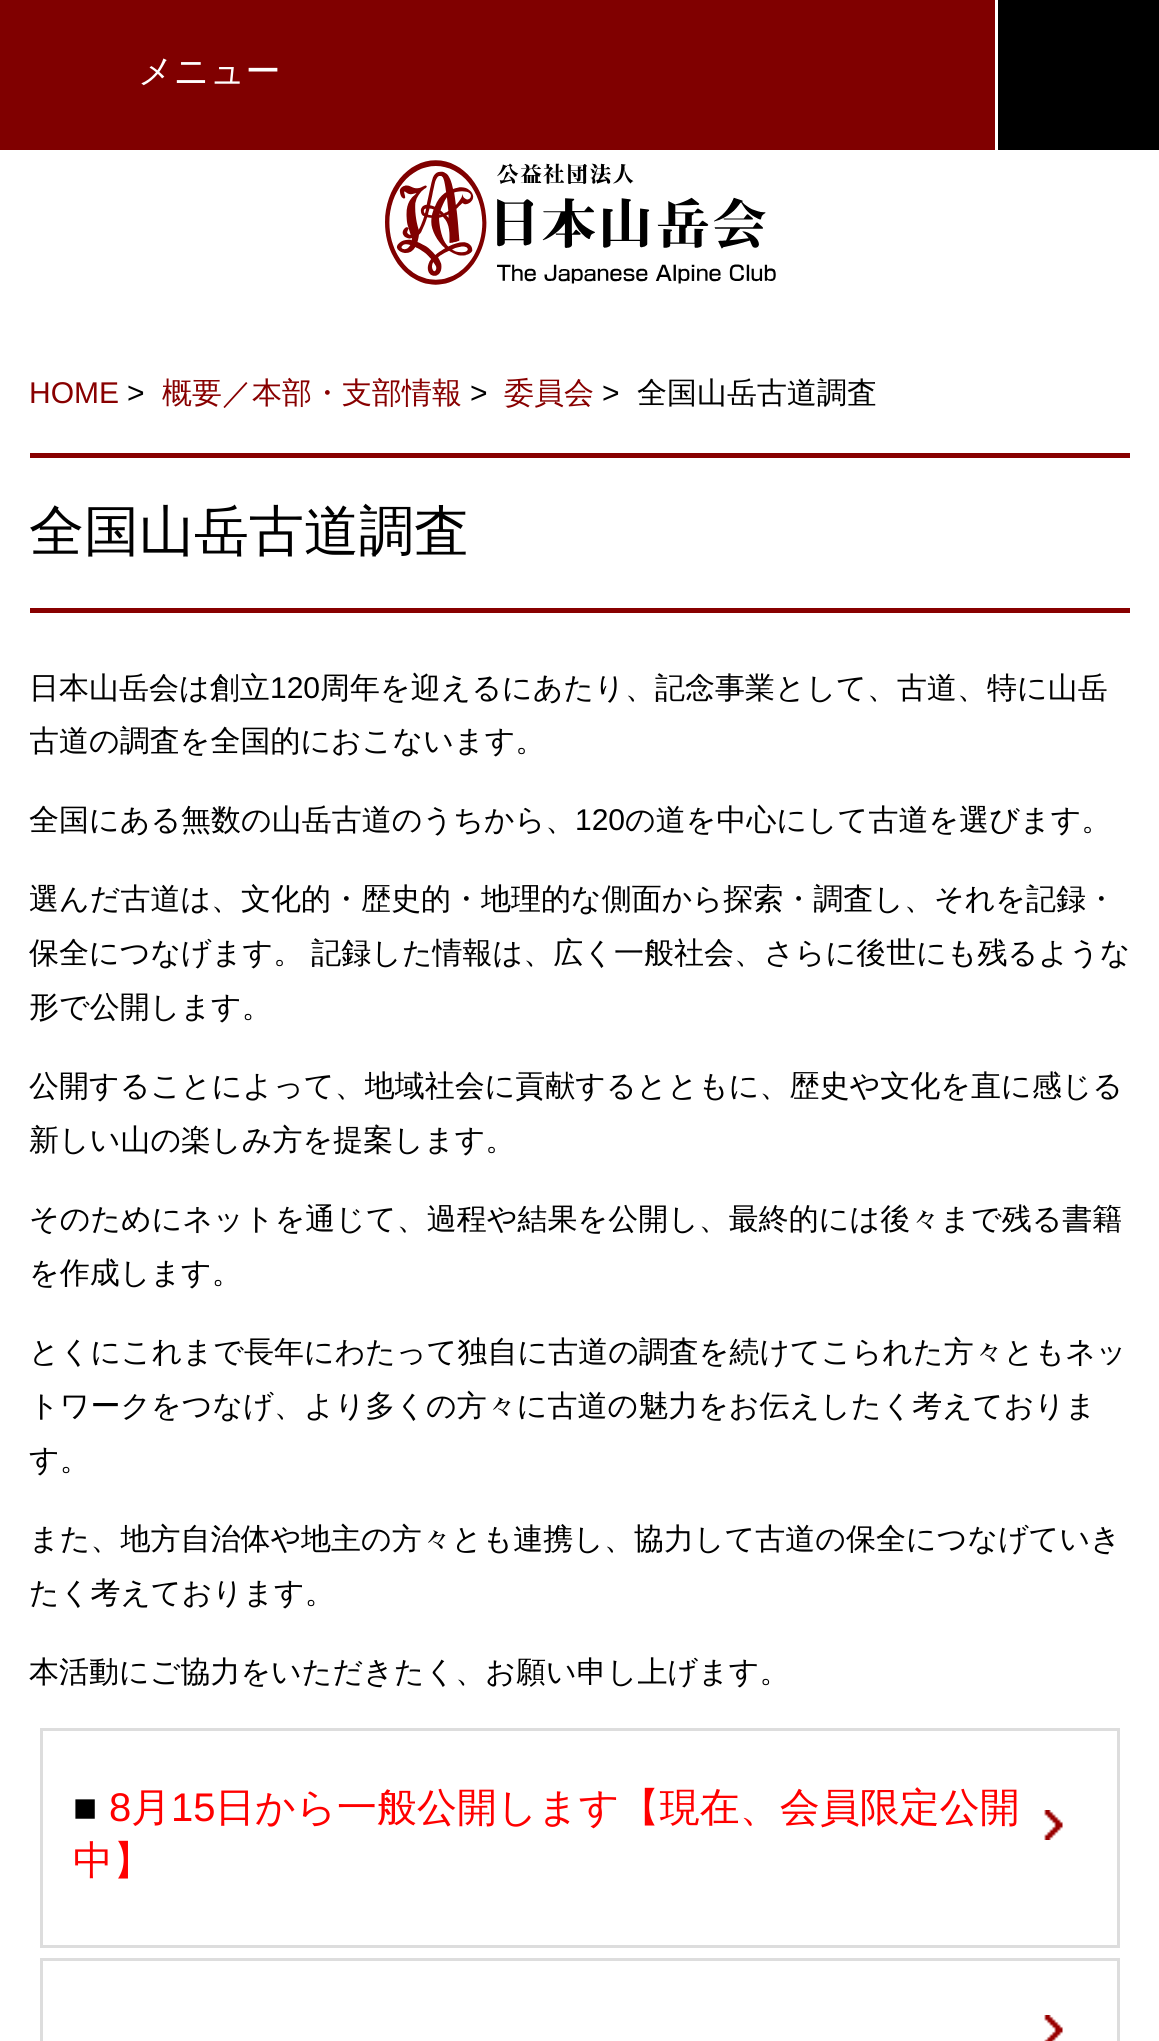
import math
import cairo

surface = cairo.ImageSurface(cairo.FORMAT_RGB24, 1159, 2041)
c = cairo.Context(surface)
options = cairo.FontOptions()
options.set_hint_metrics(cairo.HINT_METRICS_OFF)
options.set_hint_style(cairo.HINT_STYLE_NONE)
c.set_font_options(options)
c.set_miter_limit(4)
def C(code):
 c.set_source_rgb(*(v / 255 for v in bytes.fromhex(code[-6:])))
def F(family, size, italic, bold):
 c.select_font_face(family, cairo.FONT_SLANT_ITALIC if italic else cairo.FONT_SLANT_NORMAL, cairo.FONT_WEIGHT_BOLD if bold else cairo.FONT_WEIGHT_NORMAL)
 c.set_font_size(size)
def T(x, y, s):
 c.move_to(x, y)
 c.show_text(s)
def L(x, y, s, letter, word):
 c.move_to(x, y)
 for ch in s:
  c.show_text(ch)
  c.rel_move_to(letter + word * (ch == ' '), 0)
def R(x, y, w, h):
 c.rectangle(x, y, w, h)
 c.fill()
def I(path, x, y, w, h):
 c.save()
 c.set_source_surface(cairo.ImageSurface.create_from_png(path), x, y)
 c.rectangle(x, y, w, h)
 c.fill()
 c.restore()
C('ffffff')
c.paint()
C('800000')
R(0,0,995,150)
F('WenQuanYi Zen Hei Medium',35,0,0)
C('ffffff')
T(138,83,'メニュー')
C('000000')
R(998,0,161,150)
I('1.png',385,160,391,125)
F('Liberation Sans',30,0,0)
C('880000')
T(29,403,'HOME')
C('000000')
T(127,403,'>')
F('WenQuanYi Zen Hei Medium',30,0,0)
C('880000')
T(162,403,'概要／本部・支部情報')
F('Liberation Sans',30,0,0)
C('000000')
T(470,403,'>')
F('WenQuanYi Zen Hei Medium',30,0,0)
C('880000')
T(504,403,'委員会')
F('Liberation Sans',30,0,0)
C('000000')
T(602,403,'>')
F('WenQuanYi Zen Hei Medium',30,0,0)
T(637,403,'全国山岳古道調査')
C('880000')
R(30,453,1100,5)
R(30,608,1100,5)
F('WenQuanYi Zen Hei Medium',55,0,0)
C('000000')
T(29,550,'全国山岳古道調査')
F('WenQuanYi Zen Hei Medium',30,0,0)
T(29,698,'日本山岳会は創立')
F('Liberation Sans',30,0,0)
T(270,698,'120')
F('WenQuanYi Zen Hei Medium',30,0,0)
T(320,698,'周年を迎えるにあたり、記念事業として、古道、特に山岳')
c.save()
c.rectangle(30,323,1100,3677)
c.clip()
T(29,751,'古道の調査を全国的におこないます。')
c.restore()
T(29,830,'全国にある無数の山岳古道のうちから、')
F('Liberation Sans',30,0,0)
T(575,830,'120')
F('WenQuanYi Zen Hei Medium',30,0,0)
T(625,830,'の道を中心にして古道を選びます。')
T(29,909,'選んだ古道は、文化的・歴史的・地理的な側面から探索・調査し、それを記録・')
L(29,963,'保全につなげます。 記録した情報は、広く一般社会、さらに後世にも残るような',0,-1)
T(29,1017,'形で公開します。')
T(29,1096,'公開することによって、地域社会に貢献するとともに、歴史や文化を直に感じる')
T(29,1150,'新しい山の楽しみ方を提案します。')
T(29,1229,'そのためにネットを通じて、過程や結果を公開し、最終的には後々まで残る書籍')
T(29,1283,'を作成します。')
T(29,1362,'とくにこれまで長年にわたって独自に古道の調査を続けてこられた方々ともネッ')
T(29,1416,'トワークをつなげ、より多くの方々に古道の魅力をお伝えしたく考えておりま')
T(29,1470,'す。')
T(29,1549,'また、地方自治体や地主の方々とも連携し、協力して古道の保全につなげていき')
T(29,1603,'たく考えております。')
T(29,1682,'本活動にご協力をいただきたく、お願い申し上げます。')
c.rectangle(41.5,1729.5,1077,217)
C('dddddd')
c.set_line_width(3)
c.stroke()
F('Liberation Sans',40,0,0)
C('000000')
T(73,1821,'■')
C('ff0000')
T(109,1821,'8')
F('WenQuanYi Zen Hei Medium',40,0,0)
T(131,1821,'月')
F('Liberation Sans',40,0,0)
T(171,1821,'15')
F('WenQuanYi Zen Hei Medium',40,0,0)
T(215,1821,'日から一般公開します【現在、会員限定公開')
T(73,1874,'中】')
I('2.png',1044,1810,19,30)
c.rectangle(41.5,1959.5,1077,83)
C('dddddd')
c.stroke()
I('3.png',1044,2015,19,26)
surface.write_to_png('o.png')
